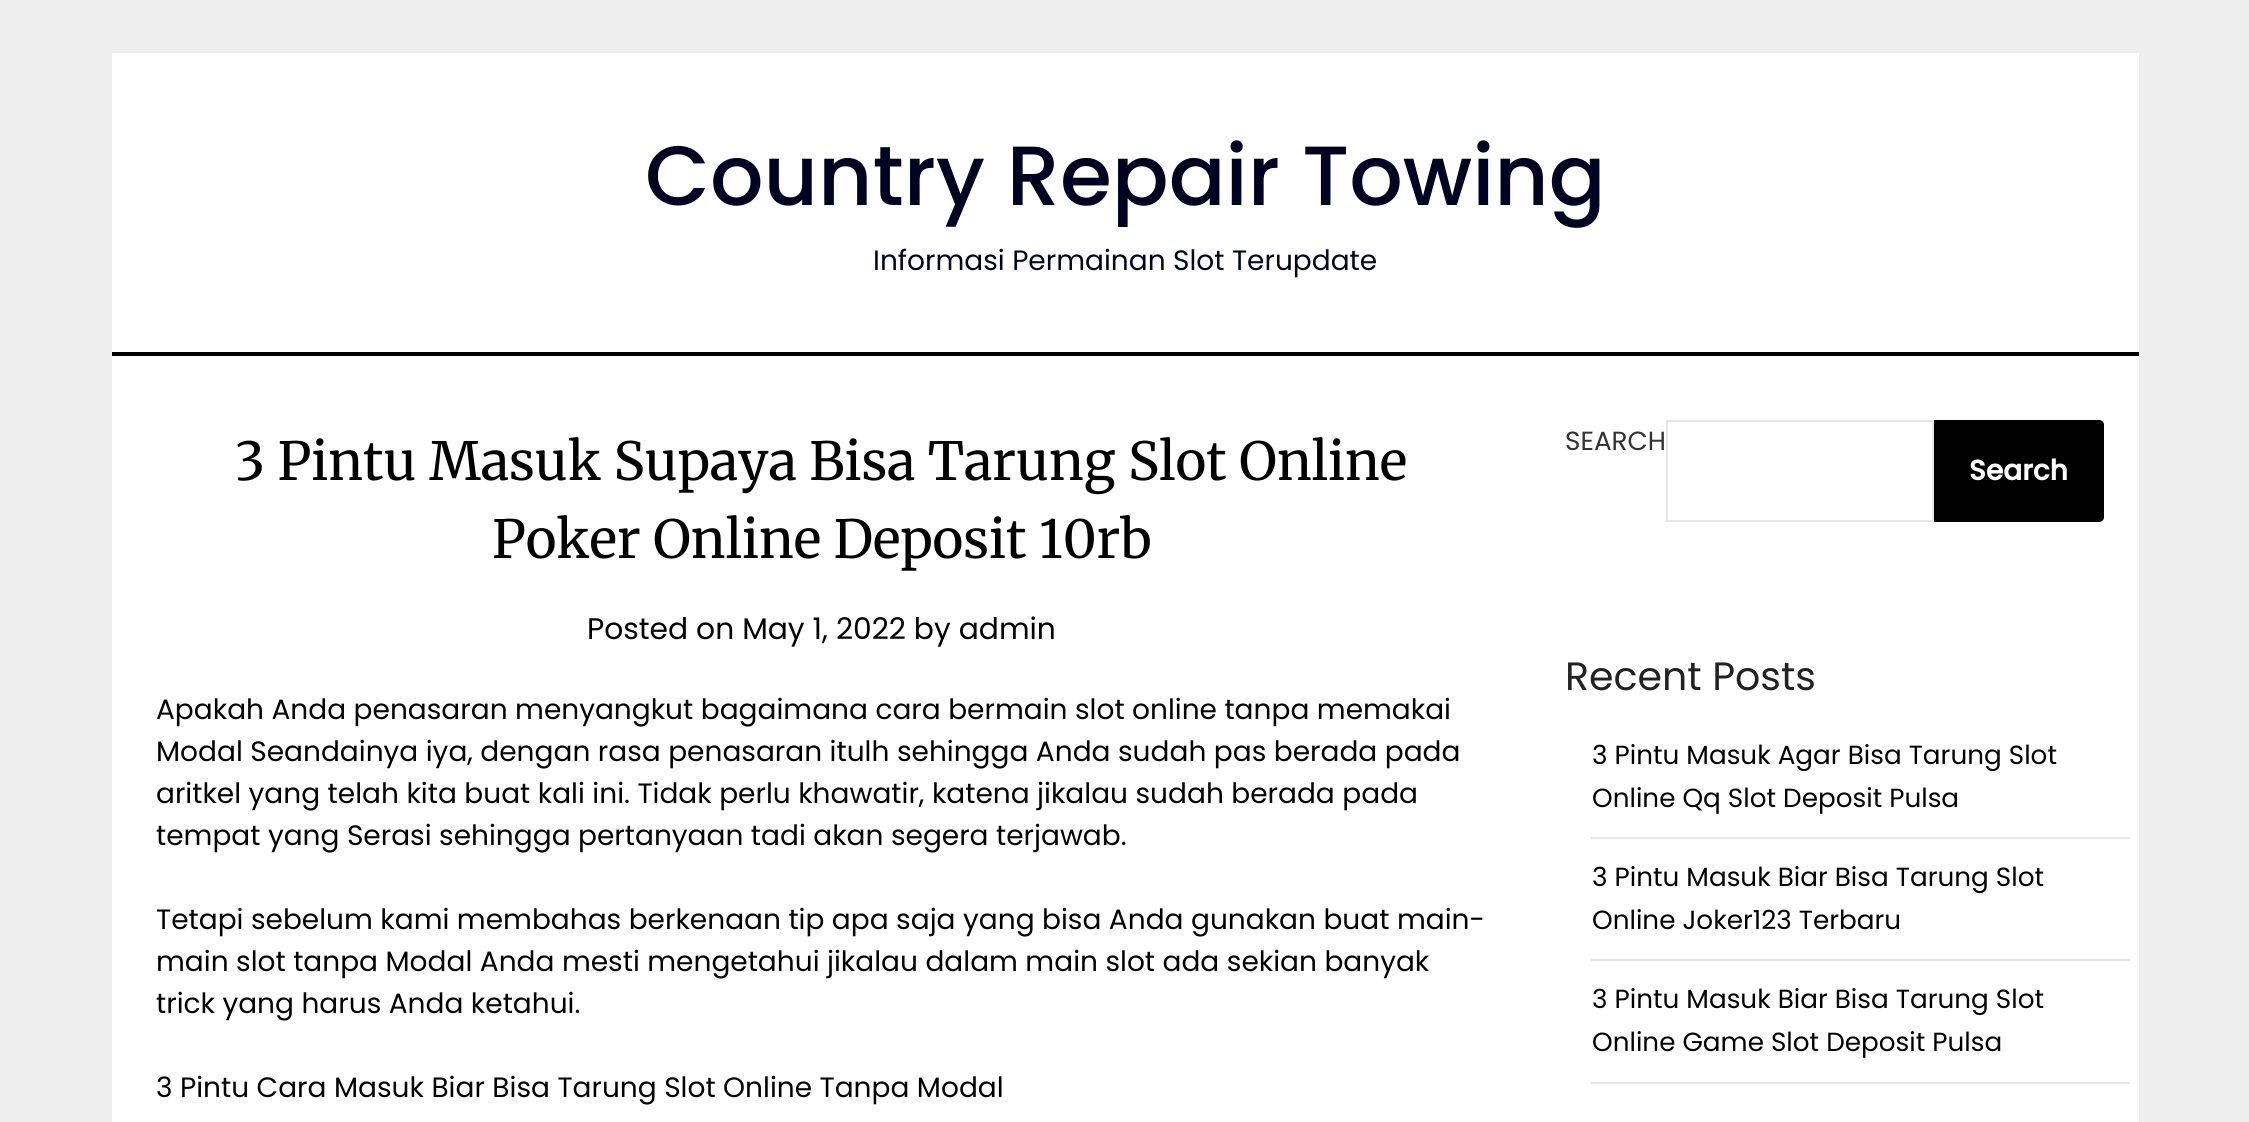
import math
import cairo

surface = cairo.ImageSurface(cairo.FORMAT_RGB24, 2249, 1122)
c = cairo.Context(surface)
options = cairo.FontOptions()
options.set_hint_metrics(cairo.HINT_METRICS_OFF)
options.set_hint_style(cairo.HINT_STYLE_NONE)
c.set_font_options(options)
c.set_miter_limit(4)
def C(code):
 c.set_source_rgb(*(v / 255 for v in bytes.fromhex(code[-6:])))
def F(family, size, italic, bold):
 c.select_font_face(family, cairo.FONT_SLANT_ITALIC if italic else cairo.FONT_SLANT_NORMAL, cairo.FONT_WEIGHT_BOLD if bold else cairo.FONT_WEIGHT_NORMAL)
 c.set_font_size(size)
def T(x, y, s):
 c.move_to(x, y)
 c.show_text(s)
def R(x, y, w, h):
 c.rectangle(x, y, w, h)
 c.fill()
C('eeeeee')
c.paint()
C('ffffff')
R(112,53,2027,299)
F('Poppins Medium',84,0,0)
C('000222')
T(645,205,'Country Repair Towing')
F('Poppins',28,0,0)
T(873,270,'Informasi Permainan Slot Terupdate')
C('000000')
R(112,352,2027,4)
C('ffffff')
R(112,356,2027,766)
F('Merriweather',52.5,0,0)
C('000000')
T(235,480,'3 Pintu Masuk Supaya Bisa Tarung Slot Online')
T(492,558,'Poker Online Deposit 10rb')
F('Poppins',29.75,0,0)
T(587,639,'Posted on May 1, 2022 by admin')
F('Poppins',28,0,0)
T(156,719,'Apakah Anda penasaran menyangkut bagaimana cara bermain slot online tanpa memakai')
T(156,761,'Modal Seandainya iya, dengan rasa penasaran itulh sehingga Anda sudah pas berada pada')
T(156,803,'aritkel yang telah kita buat kali ini. Tidak perlu khawatir, katena jikalau sudah berada pada')
T(156,845,'tempat yang Serasi sehingga pertanyaan tadi akan segera terjawab.')
T(156,929,'Tetapi sebelum kami membahas berkenaan tip apa saja yang bisa Anda gunakan buat main-')
T(156,971,'main slot tanpa Modal Anda mesti mengetahui jikalau dalam main slot ada sekian banyak')
T(156,1013,'trick yang harus Anda ketahui.')
T(156,1097,'3 Pintu Cara Masuk Biar Bisa Tarung Slot Online Tanpa Modal')
F('Poppins',26.25,0,0)
C('333333')
T(1565,450,'SEARCH')
c.rectangle(1667,421,266,100)
C('e5e6e9')
c.stroke()
C('000000')
c.new_path()
c.move_to(1934,420)
c.line_to(2099,420)
c.curve_to(2102,420,2104,422,2104,425)
c.line_to(2104,517)
c.curve_to(2104,520,2102,522,2099,522)
c.line_to(1934,522)
c.close_path()
c.fill()
F('Poppins',28,0,1)
C('ffffff')
T(1969,480,'Search')
F('Poppins',39.5,0,0)
C('222222')
T(1565,690,'Recent Posts')
C('e6e6e6')
R(1591,837,539,2)
F('Poppins',26.25,0,0)
C('000000')
T(1592,764,'3 Pintu Masuk Agar Bisa Tarung Slot')
T(1592,807,'Online Qq Slot Deposit Pulsa')
C('e6e6e6')
R(1591,959,539,2)
C('000000')
T(1592,886,'3 Pintu Masuk Biar Bisa Tarung Slot')
T(1592,929,'Online Joker123 Terbaru')
C('e6e6e6')
R(1591,1082,539,2)
C('000000')
T(1592,1008,'3 Pintu Masuk Biar Bisa Tarung Slot')
T(1592,1051,'Online Game Slot Deposit Pulsa')
surface.write_to_png('o.png')
